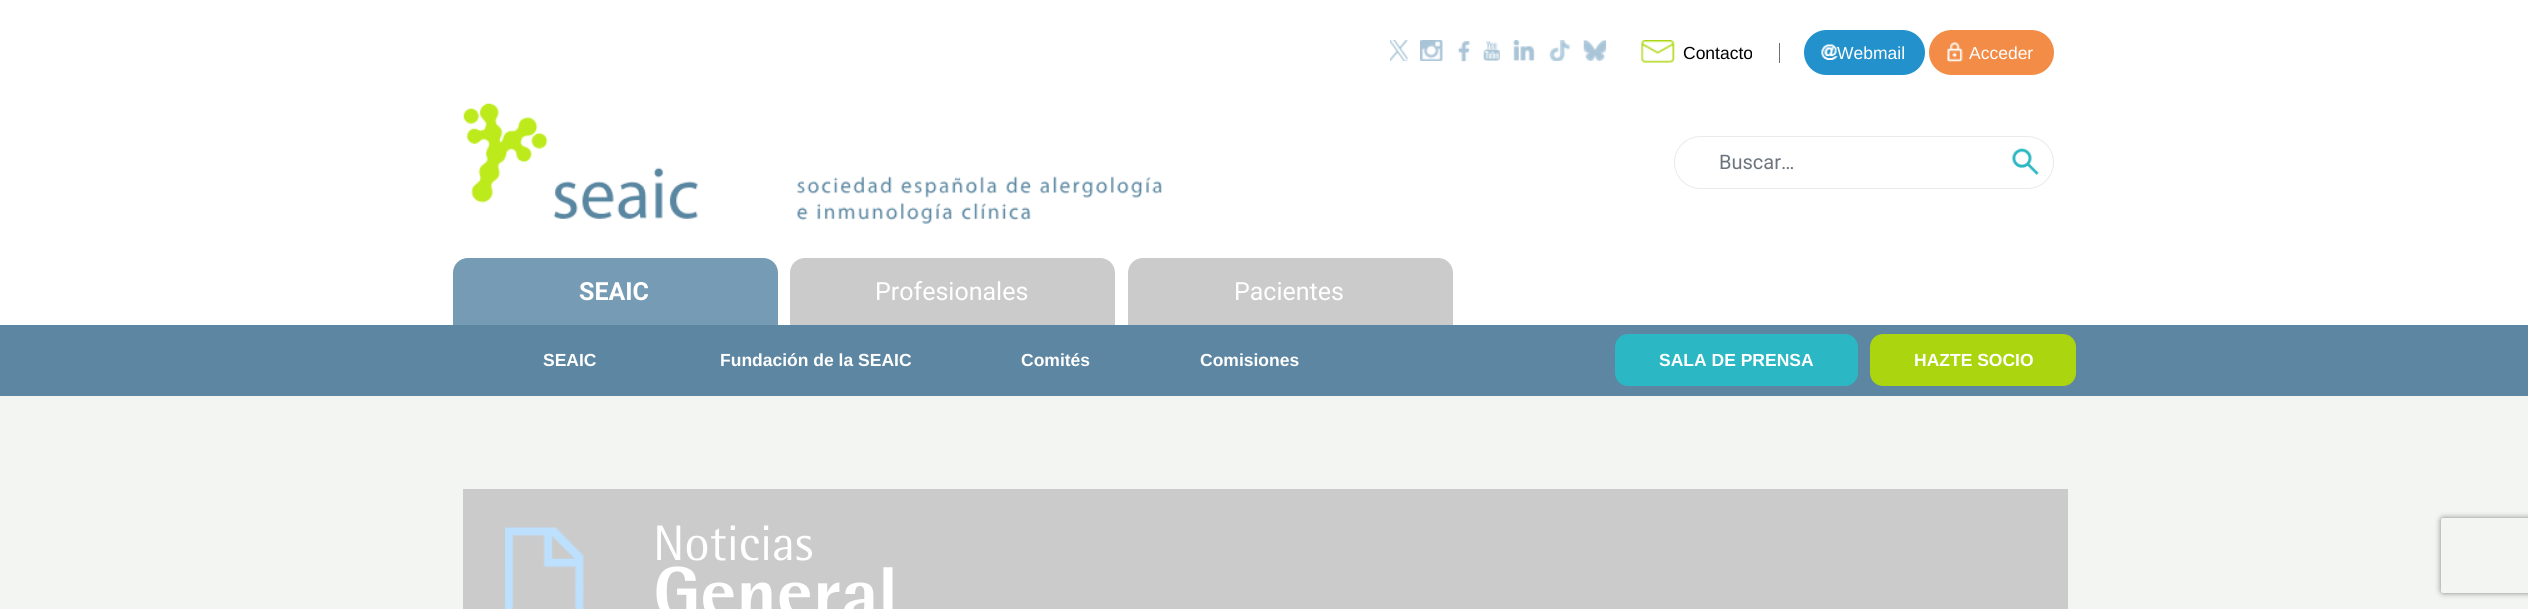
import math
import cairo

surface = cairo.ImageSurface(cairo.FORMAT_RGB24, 2528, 609)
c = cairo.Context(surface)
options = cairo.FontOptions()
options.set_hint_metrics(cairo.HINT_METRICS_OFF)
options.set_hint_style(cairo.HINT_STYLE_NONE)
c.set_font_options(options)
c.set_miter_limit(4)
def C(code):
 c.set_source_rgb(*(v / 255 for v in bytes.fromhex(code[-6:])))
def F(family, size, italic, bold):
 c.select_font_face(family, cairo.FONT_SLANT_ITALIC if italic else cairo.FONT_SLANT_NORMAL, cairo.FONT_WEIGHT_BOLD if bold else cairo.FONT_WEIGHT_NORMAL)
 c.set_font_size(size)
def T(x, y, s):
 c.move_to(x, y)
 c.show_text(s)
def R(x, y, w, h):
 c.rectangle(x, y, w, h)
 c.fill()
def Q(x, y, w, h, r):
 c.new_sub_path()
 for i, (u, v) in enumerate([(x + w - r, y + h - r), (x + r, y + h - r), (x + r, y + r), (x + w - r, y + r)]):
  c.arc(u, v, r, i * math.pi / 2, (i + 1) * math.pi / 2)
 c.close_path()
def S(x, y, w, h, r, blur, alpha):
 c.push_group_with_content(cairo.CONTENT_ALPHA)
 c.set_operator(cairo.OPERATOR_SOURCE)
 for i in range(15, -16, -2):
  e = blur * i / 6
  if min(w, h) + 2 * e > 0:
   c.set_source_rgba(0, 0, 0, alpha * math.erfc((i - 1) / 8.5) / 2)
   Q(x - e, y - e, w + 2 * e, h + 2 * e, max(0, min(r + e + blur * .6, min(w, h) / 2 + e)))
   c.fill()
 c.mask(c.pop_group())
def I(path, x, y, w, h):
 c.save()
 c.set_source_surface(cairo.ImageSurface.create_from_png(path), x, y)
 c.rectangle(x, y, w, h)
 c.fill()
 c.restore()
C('f3f5f3')
c.paint()
C('ffffff')
R(0,0,2528,325)
I('1.png',1390,40,18,22)
I('2.png',1420,40,23,22)
I('3.png',1458,41,13,21)
I('4.png',1483,41,17,20)
I('5.png',1513,40,22,21)
I('6.png',1549,40,22,22)
I('7.png',1583,40,24,21)
I('8.png',1641,40,34,23)
F('Liberation Sans',17.5,0,0)
C('000000')
T(1683,59,'Contacto')
C('707070')
R(1779,43,1,20)
C('2392cc')
Q(1804,30,121,45,22.5)
c.fill()
I('9.png',1821,44,17,16)
C('ffffff')
T(1837,59,'Webmail')
C('f38c47')
Q(1929,30,125,45,22.5)
c.fill()
I('10.png',1947,42,16,20)
C('ffffff')
T(1969,59,'Acceder')
I('11.png',463,103,699,121)
I('12.png',2012,148,27,27)
Q(1674.5,136.5,379,52,26)
C('eaeaea')
c.set_line_width(1)
c.stroke()
F('Roboto',20,0,0)
C('6c757d')
T(1719,169,'Buscar…')
C('769bb5')
c.new_path()
c.move_to(468,258)
c.line_to(763,258)
c.curve_to(771.5,258,778,264.5,778,273)
c.line_to(778,325)
c.line_to(453,325)
c.line_to(453,273)
c.curve_to(453,264.5,459.5,258,468,258)
c.close_path()
c.fill()
F('Roboto',25,0,1)
C('ffffff')
T(579,300,'SEAIC')
C('cbcbcb')
c.new_path()
c.move_to(805,258)
c.line_to(1100,258)
c.curve_to(1108.5,258,1115,264.5,1115,273)
c.line_to(1115,325)
c.line_to(790,325)
c.line_to(790,273)
c.curve_to(790,264.5,796.5,258,805,258)
c.close_path()
c.fill()
F('Roboto',25,0,0)
C('ffffff')
T(875,300,'Profesionales')
C('cbcbcb')
c.new_path()
c.move_to(1143,258)
c.line_to(1438,258)
c.curve_to(1446.5,258,1453,264.5,1453,273)
c.line_to(1453,325)
c.line_to(1128,325)
c.line_to(1128,273)
c.curve_to(1128,264.5,1134.5,258,1143,258)
c.close_path()
c.fill()
C('ffffff')
T(1234,300,'Pacientes')
C('5d86a2')
R(0,325,2528,71)
F('Liberation Sans',17.5,0,1)
C('ffffff')
T(543,366,'SEAIC')
T(720,366,'Fundación de la SEAIC')
T(1021,366,'Comités')
T(1200,366,'Comisiones')
C('2bb7c3')
Q(1615,334,243,52,13)
c.fill()
C('ffffff')
T(1659,366,'SALA DE PRENSA')
C('abd60f')
Q(1870,334,206,52,13)
c.fill()
C('ffffff')
T(1914,366,'HAZTE SOCIO')
C('cbcbcb')
R(463,489,1605,120)
I('13.png',505,527,79,82)
F('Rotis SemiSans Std',50,0,0)
C('ffffff')
T(653,560,'Noticias')
F('Rotis SemiSans Std ExtraBold',75,0,0)
T(653,619,'General')
c.save()
c.set_fill_rule(cairo.FILL_RULE_EVEN_ODD)
c.new_path()
c.move_to(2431,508)
c.line_to(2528,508)
c.line_to(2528,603)
c.line_to(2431,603)
c.close_path()
c.move_to(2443.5,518)
c.line_to(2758.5,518)
c.curve_to(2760,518,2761,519,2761,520.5)
c.line_to(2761,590.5)
c.curve_to(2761,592,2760,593,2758.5,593)
c.line_to(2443.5,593)
c.curve_to(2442,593,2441,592,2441,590.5)
c.line_to(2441,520.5)
c.curve_to(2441,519,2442,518,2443.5,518)
c.close_path()
c.clip()
C('808080')
S(2441,518,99,75,2.5,3,1)
c.restore()
surface.write_to_png('o.png')
